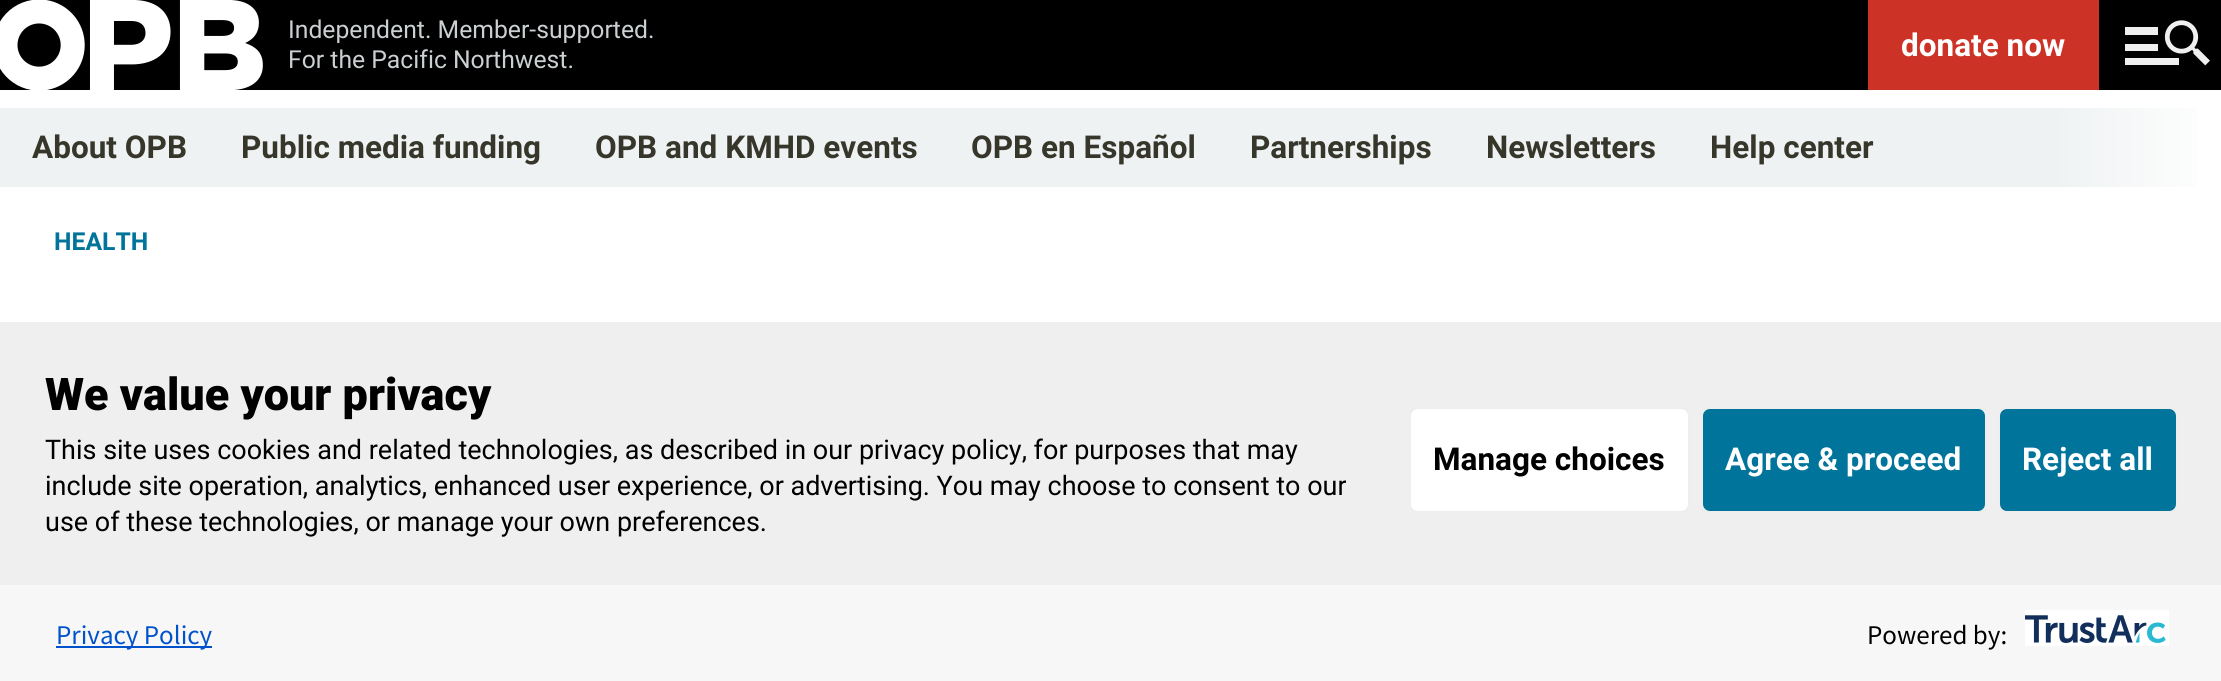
import math
import cairo

surface = cairo.ImageSurface(cairo.FORMAT_RGB24, 2221, 681)
c = cairo.Context(surface)
options = cairo.FontOptions()
options.set_hint_metrics(cairo.HINT_METRICS_OFF)
options.set_hint_style(cairo.HINT_STYLE_NONE)
c.set_font_options(options)
c.set_miter_limit(4)
def C(code):
 c.set_source_rgb(*(v / 255 for v in bytes.fromhex(code[-6:])))
def F(family, size, italic, bold):
 c.select_font_face(family, cairo.FONT_SLANT_ITALIC if italic else cairo.FONT_SLANT_NORMAL, cairo.FONT_WEIGHT_BOLD if bold else cairo.FONT_WEIGHT_NORMAL)
 c.set_font_size(size)
def T(x, y, s):
 c.move_to(x, y)
 c.show_text(s)
def R(x, y, w, h):
 c.rectangle(x, y, w, h)
 c.fill()
def Q(x, y, w, h, r):
 c.new_sub_path()
 for i, (u, v) in enumerate([(x + w - r, y + h - r), (x + r, y + h - r), (x + r, y + r), (x + w - r, y + r)]):
  c.arc(u, v, r, i * math.pi / 2, (i + 1) * math.pi / 2)
 c.close_path()
def I(path, x, y, w, h):
 c.save()
 c.set_source_surface(cairo.ImageSurface.create_from_png(path), x, y)
 c.rectangle(x, y, w, h)
 c.fill()
 c.restore()
C('000000')
c.paint()
I('1.png',0,0,263,90)
F('Roboto',24.75,0,0)
C('cbd0d2')
T(288,38,'Independent. Member-supported.')
T(288,68,'For the Pacific Northwest.')
C('cd3227')
R(1868,0,231,90)
F('Roboto',31.5,0,1)
C('ffffff')
T(1901,56,'donate now')
I('2.png',2125,20,85,46)
R(0,90,2221,232)
C('eff2f3')
R(0,108,2054,79)
C('36362b')
T(32,158,'About OPB')
T(241,158,'Public media funding')
T(595,158,'OPB and KMHD events')
T(971,158,'OPB en Español')
T(1250,158,'Partnerships')
T(1486,158,'Newsletters')
T(1710,158,'Help center')
gradient = cairo.LinearGradient(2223,147,2054,147)
gradient.add_color_stop_rgba(0,1,1,1,1)
gradient.add_color_stop_rgba(1,0.937,0.949,0.953,1)
c.set_source(gradient)
R(2054,108,143,79)
F('Roboto',24.75,0,1)
C('00749b')
T(54,250,'HEALTH')
C('efefef')
R(0,322,2221,263)
F('Roboto Black',45,0,0)
C('000000')
T(45,410,'We value your privacy')
F('Roboto',27,0,0)
T(45,459,'This site uses cookies and related technologies, as described in our privacy policy, for purposes that may')
T(45,495,'include site operation, analytics, enhanced user experience, or advertising. You may choose to consent to our')
T(45,531,'use of these technologies, or manage your own preferences.')
C('ffffff')
Q(1410,408,279,104,8)
c.fill_preserve()
C('eeeeee')
c.stroke()
F('Roboto',31.5,0,1)
C('000000')
T(1433,470,'Manage choices')
C('00749b')
Q(1702,408,284,104,8)
c.fill_preserve()
C('eeeeee')
c.stroke()
C('ffffff')
T(1725,470,'Agree & proceed')
C('00749b')
Q(1999,408,178,104,8)
c.fill_preserve()
C('eeeeee')
c.stroke()
C('ffffff')
T(2022,470,'Reject all')
C('f7f7f7')
R(0,585,2221,96)
C('0052cc')
R(56,646,156,2)
F('Source Sans Pro',27,0,0)
T(56,644,'Privacy Policy')
C('000000')
T(1867,644,'Powered by:')
I('3.png',2025,610,144,36)
surface.write_to_png('o.png')
